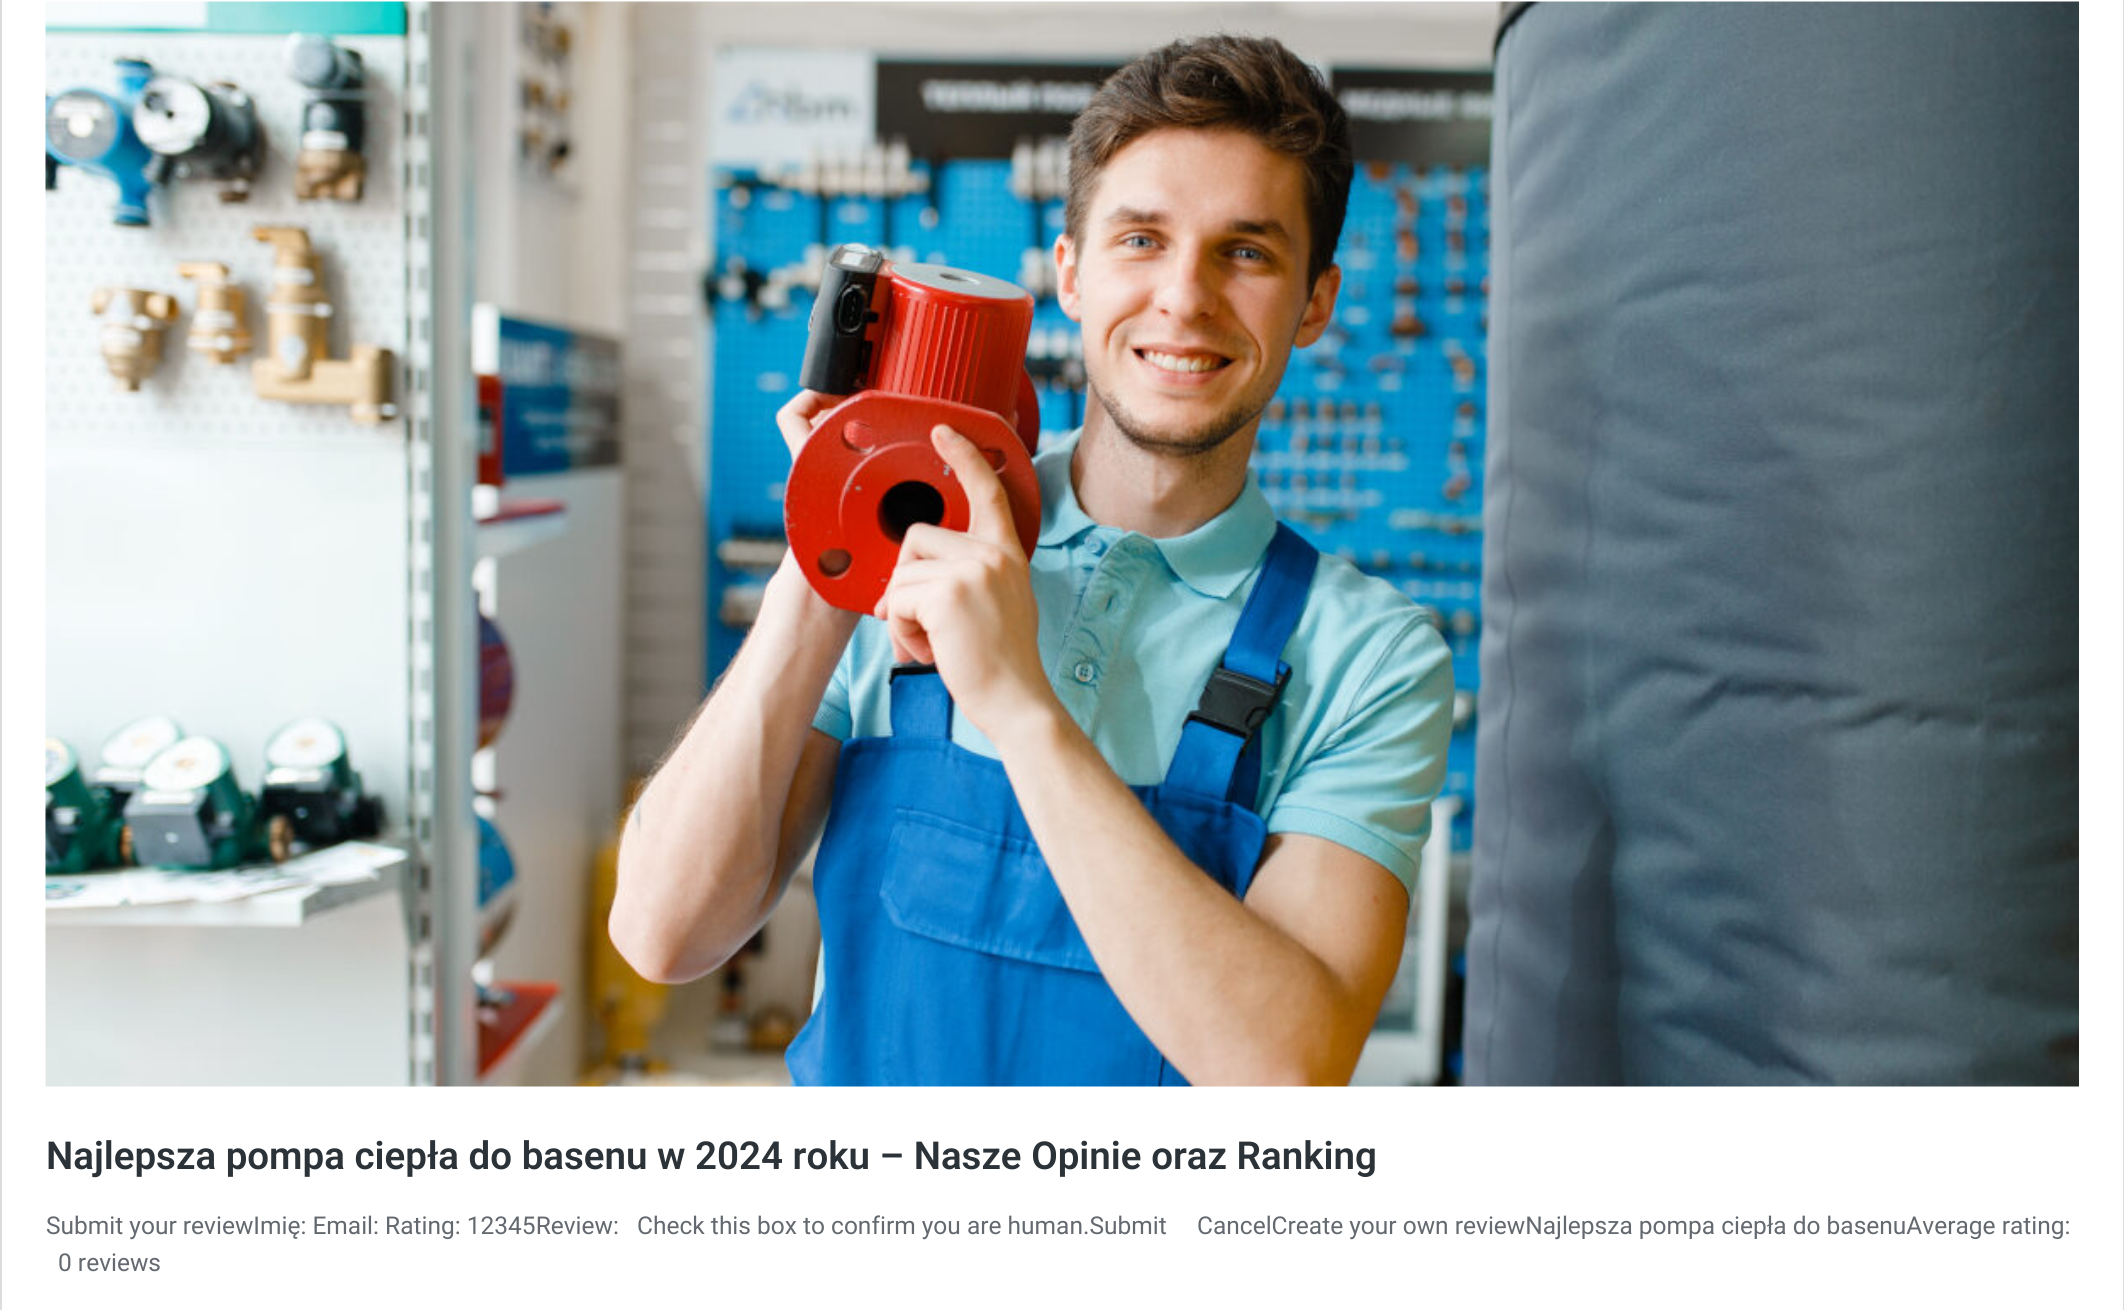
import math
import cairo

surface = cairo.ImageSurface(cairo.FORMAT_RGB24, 2124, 1310)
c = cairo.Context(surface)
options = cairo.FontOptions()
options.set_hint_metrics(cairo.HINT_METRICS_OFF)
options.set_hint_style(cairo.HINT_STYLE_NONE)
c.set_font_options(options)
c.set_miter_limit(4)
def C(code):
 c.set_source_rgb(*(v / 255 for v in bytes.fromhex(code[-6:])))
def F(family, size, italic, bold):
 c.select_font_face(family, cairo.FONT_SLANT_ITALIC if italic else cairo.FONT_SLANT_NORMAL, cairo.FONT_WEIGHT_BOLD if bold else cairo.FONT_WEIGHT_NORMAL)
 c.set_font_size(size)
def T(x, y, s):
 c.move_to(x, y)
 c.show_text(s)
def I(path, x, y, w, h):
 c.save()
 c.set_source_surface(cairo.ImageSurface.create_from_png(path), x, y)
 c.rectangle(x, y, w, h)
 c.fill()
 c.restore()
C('ffffff')
c.paint()
c.rectangle(1,-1,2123,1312)
C('dcdcde')
c.stroke()
I('1.png',45,1,2034,1086)
F('Roboto SemiBold',38.5,0,0)
C('2c3338')
T(46,1169,'Najlepsza pompa ciepła do basenu w 2024 roku – Nasze Opinie oraz Ranking')
F('Roboto',24.5,0,0)
C('646970')
T(46,1234,'Submit your reviewImię: Email: Rating: 12345Review:   Check this box to confirm you are human.Submit     CancelCreate your own reviewNajlepsza pompa ciepła do basenuAverage rating:')
T(58,1271,'0 reviews')
surface.write_to_png('o.png')
